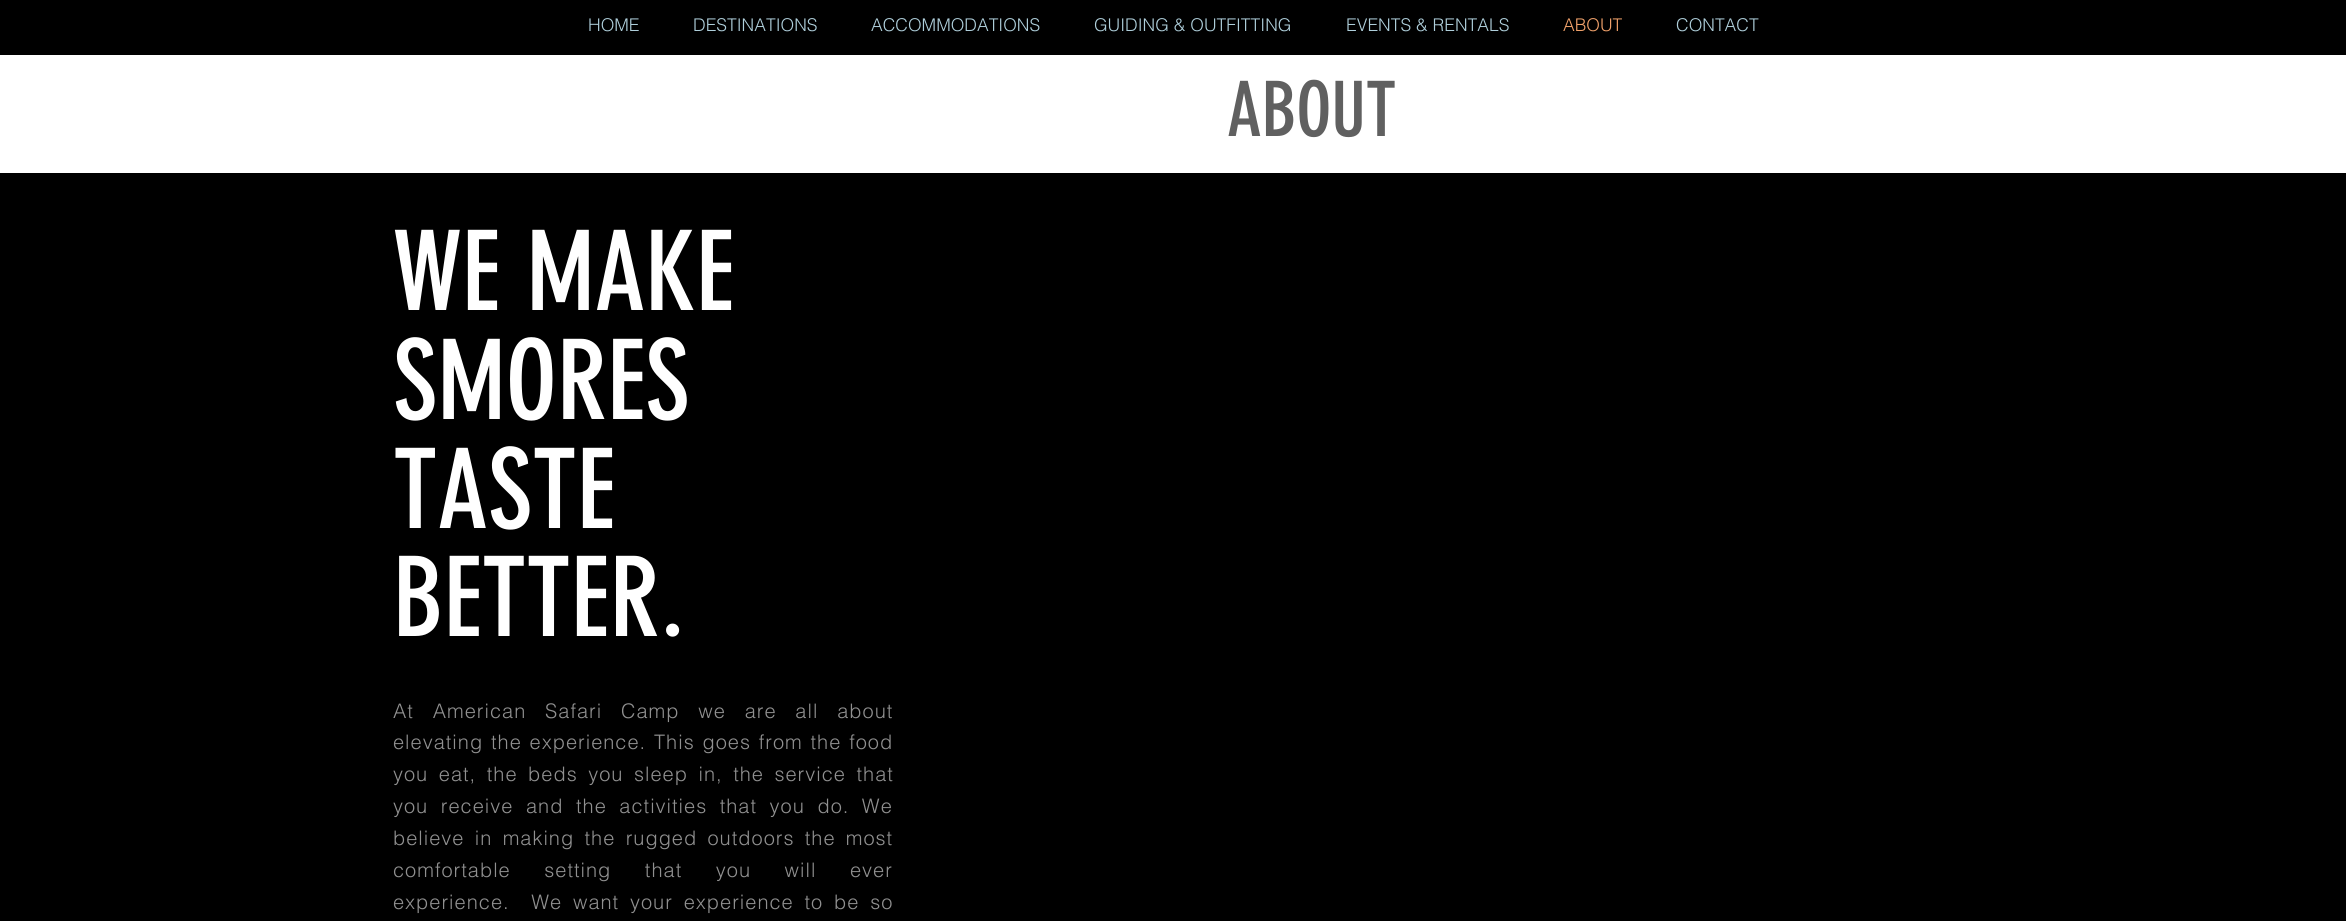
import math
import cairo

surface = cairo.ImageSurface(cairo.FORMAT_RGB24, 2346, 921)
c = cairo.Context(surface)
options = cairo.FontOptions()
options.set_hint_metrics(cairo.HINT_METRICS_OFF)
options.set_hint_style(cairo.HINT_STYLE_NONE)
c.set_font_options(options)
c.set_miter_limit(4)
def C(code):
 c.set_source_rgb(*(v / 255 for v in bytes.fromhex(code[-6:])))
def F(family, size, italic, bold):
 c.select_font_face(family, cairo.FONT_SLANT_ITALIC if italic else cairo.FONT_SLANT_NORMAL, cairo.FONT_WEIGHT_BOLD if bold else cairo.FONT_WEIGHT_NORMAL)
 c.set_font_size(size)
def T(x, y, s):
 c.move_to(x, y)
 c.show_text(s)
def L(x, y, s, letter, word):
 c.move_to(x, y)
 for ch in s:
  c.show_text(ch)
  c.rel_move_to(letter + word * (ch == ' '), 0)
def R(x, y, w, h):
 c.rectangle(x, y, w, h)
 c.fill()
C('ffffff')
c.paint()
C('000000')
R(0,0,2346,55)
F('helvetica Light',17.5,0,0)
C('afcfdb')
T(588,31,'HOME')
T(693,31,'DESTINATIONS')
T(871,31,'ACCOMMODATIONS')
T(1094,31,'GUIDING & OUTFITTING')
T(1346,31,'EVENTS & RENTALS')
C('f2a26b')
T(1563,31,'ABOUT')
C('afcfdb')
T(1676,31,'CONTACT')
F('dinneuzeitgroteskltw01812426',75,0,0)
C('606060')
T(1227,136,'ABOUT')
C('000000')
R(0,173,2346,748)
F('dinneuzeitgroteskltw01812426',109,0,0)
C('ffffff')
T(393,310,'WE MAKE')
T(393,419,'SMORES')
T(393,528,'TASTE')
T(393,636,'BETTER.')
F('helvetica Light',20,0,0)
C('909090')
L(393,718,'At American Safari Camp we are all about',1,12.25)
L(393,749,'elevating the experience. This goes from the food',1,1.25)
L(393,781,'you eat, the beds you sleep in, the service that',1,4)
L(393,813,'you receive and the activities that you do. We',1,6)
L(393,845,'believe in making the rugged outdoors the most',1,3.75)
L(393,877,'comfortable setting that you will ever',1,27)
L(393,909,'experience.  We want your experience to be so',1,4.25)
surface.write_to_png('o.png')
